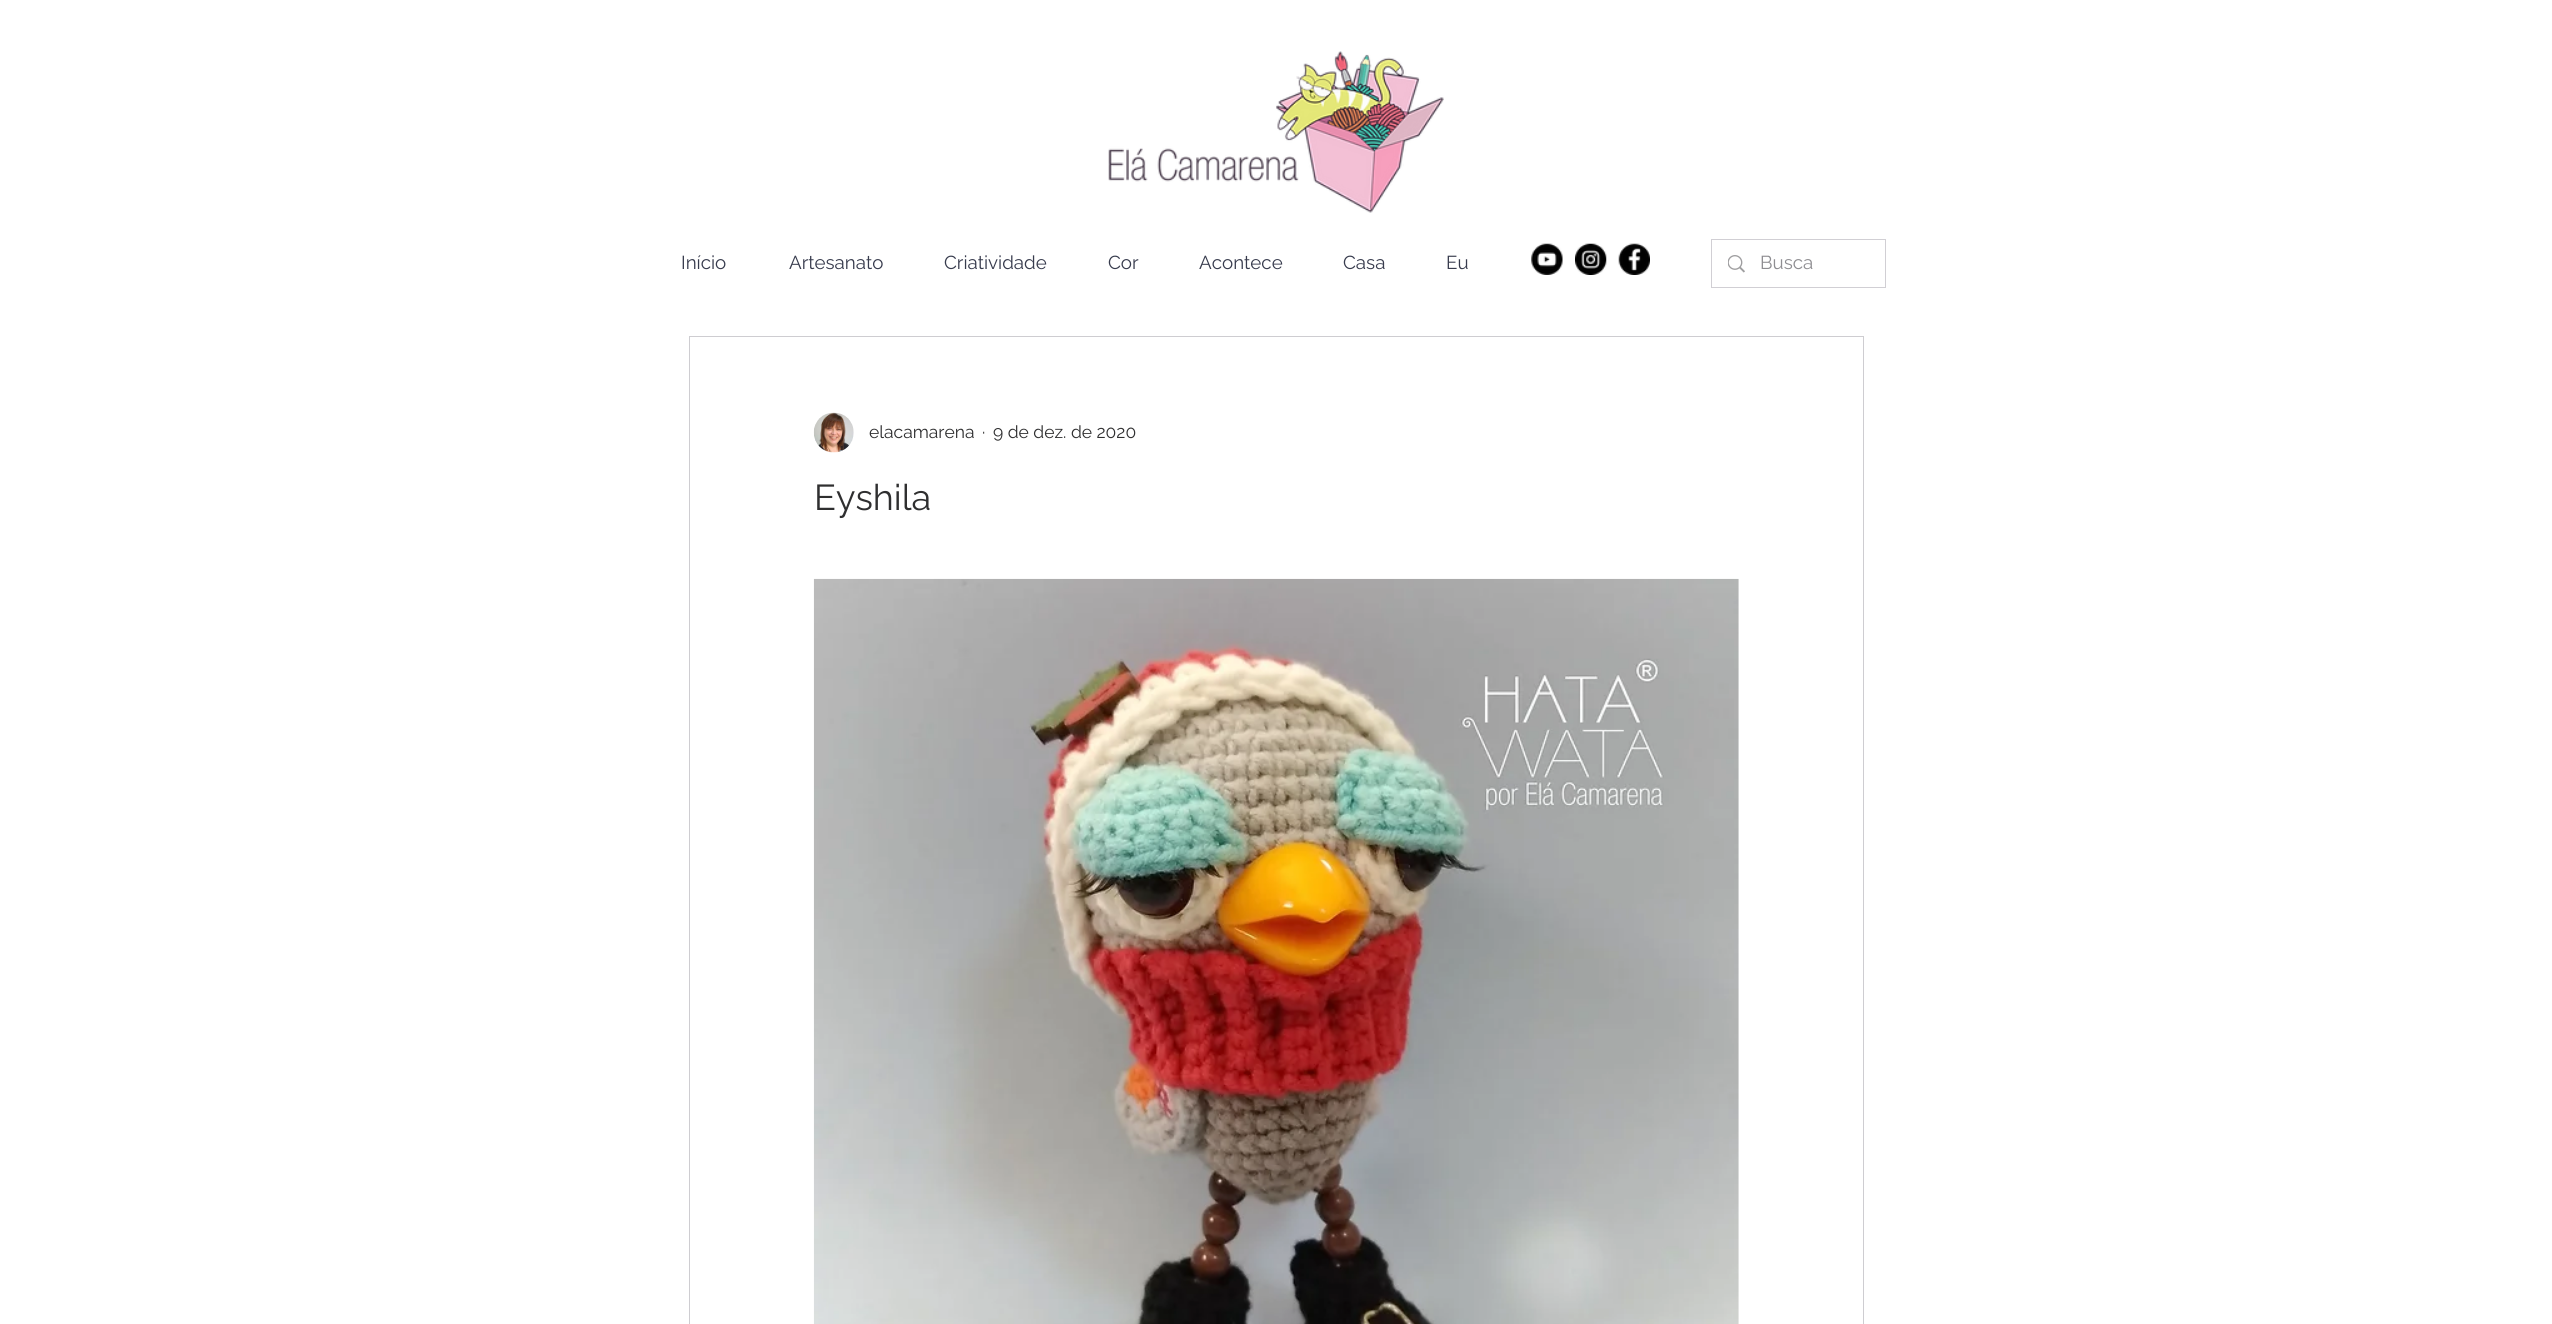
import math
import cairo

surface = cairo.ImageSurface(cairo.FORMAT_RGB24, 2552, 1324)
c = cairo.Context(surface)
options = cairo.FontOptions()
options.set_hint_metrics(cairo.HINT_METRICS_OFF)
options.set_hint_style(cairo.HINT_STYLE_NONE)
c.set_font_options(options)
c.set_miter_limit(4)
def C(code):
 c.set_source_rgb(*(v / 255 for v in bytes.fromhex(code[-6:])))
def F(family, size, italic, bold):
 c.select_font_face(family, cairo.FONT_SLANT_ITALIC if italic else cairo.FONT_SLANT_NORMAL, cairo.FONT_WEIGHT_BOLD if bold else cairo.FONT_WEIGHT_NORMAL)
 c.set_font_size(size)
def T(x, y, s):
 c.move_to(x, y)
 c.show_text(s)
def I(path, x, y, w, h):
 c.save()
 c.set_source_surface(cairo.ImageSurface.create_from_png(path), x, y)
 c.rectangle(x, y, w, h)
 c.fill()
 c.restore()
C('ffffff')
c.paint()
I('1.png',1108,51,336,162)
F('Raleway',18.75,0,0)
C('373b4d')
T(681,269,'Início')
T(789,269,'Artesanato')
T(944,269,'Criatividade')
T(1108,269,'Cor')
T(1199,269,'Acontece')
T(1343,269,'Casa')
T(1446,269,'Eu')
I('2.png',1531,243,32,32)
I('3.png',1575,243,32,32)
I('4.png',1618,243,32,32)
c.rectangle(1711.5,239.5,174,48)
C('d1cfd4')
c.set_line_width(1)
c.stroke()
I('5.png',1728,255,17,18)
C('8e8d91')
T(1760,269,'Busca')
c.rectangle(689.5,336.5,1174,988)
C('cecdd1')
c.stroke()
I('6.png',813,412,41,41)
F('Raleway',17.5,0,0)
C('2f2f30')
T(869,438,'elacamarena')
T(982,438,'·')
T(993,438,'9 de dez. de 2020')
F('Raleway',36,0,0)
T(814,510,'Eyshila')
I('7.png',813,578,926,746)
surface.write_to_png('o.png')
